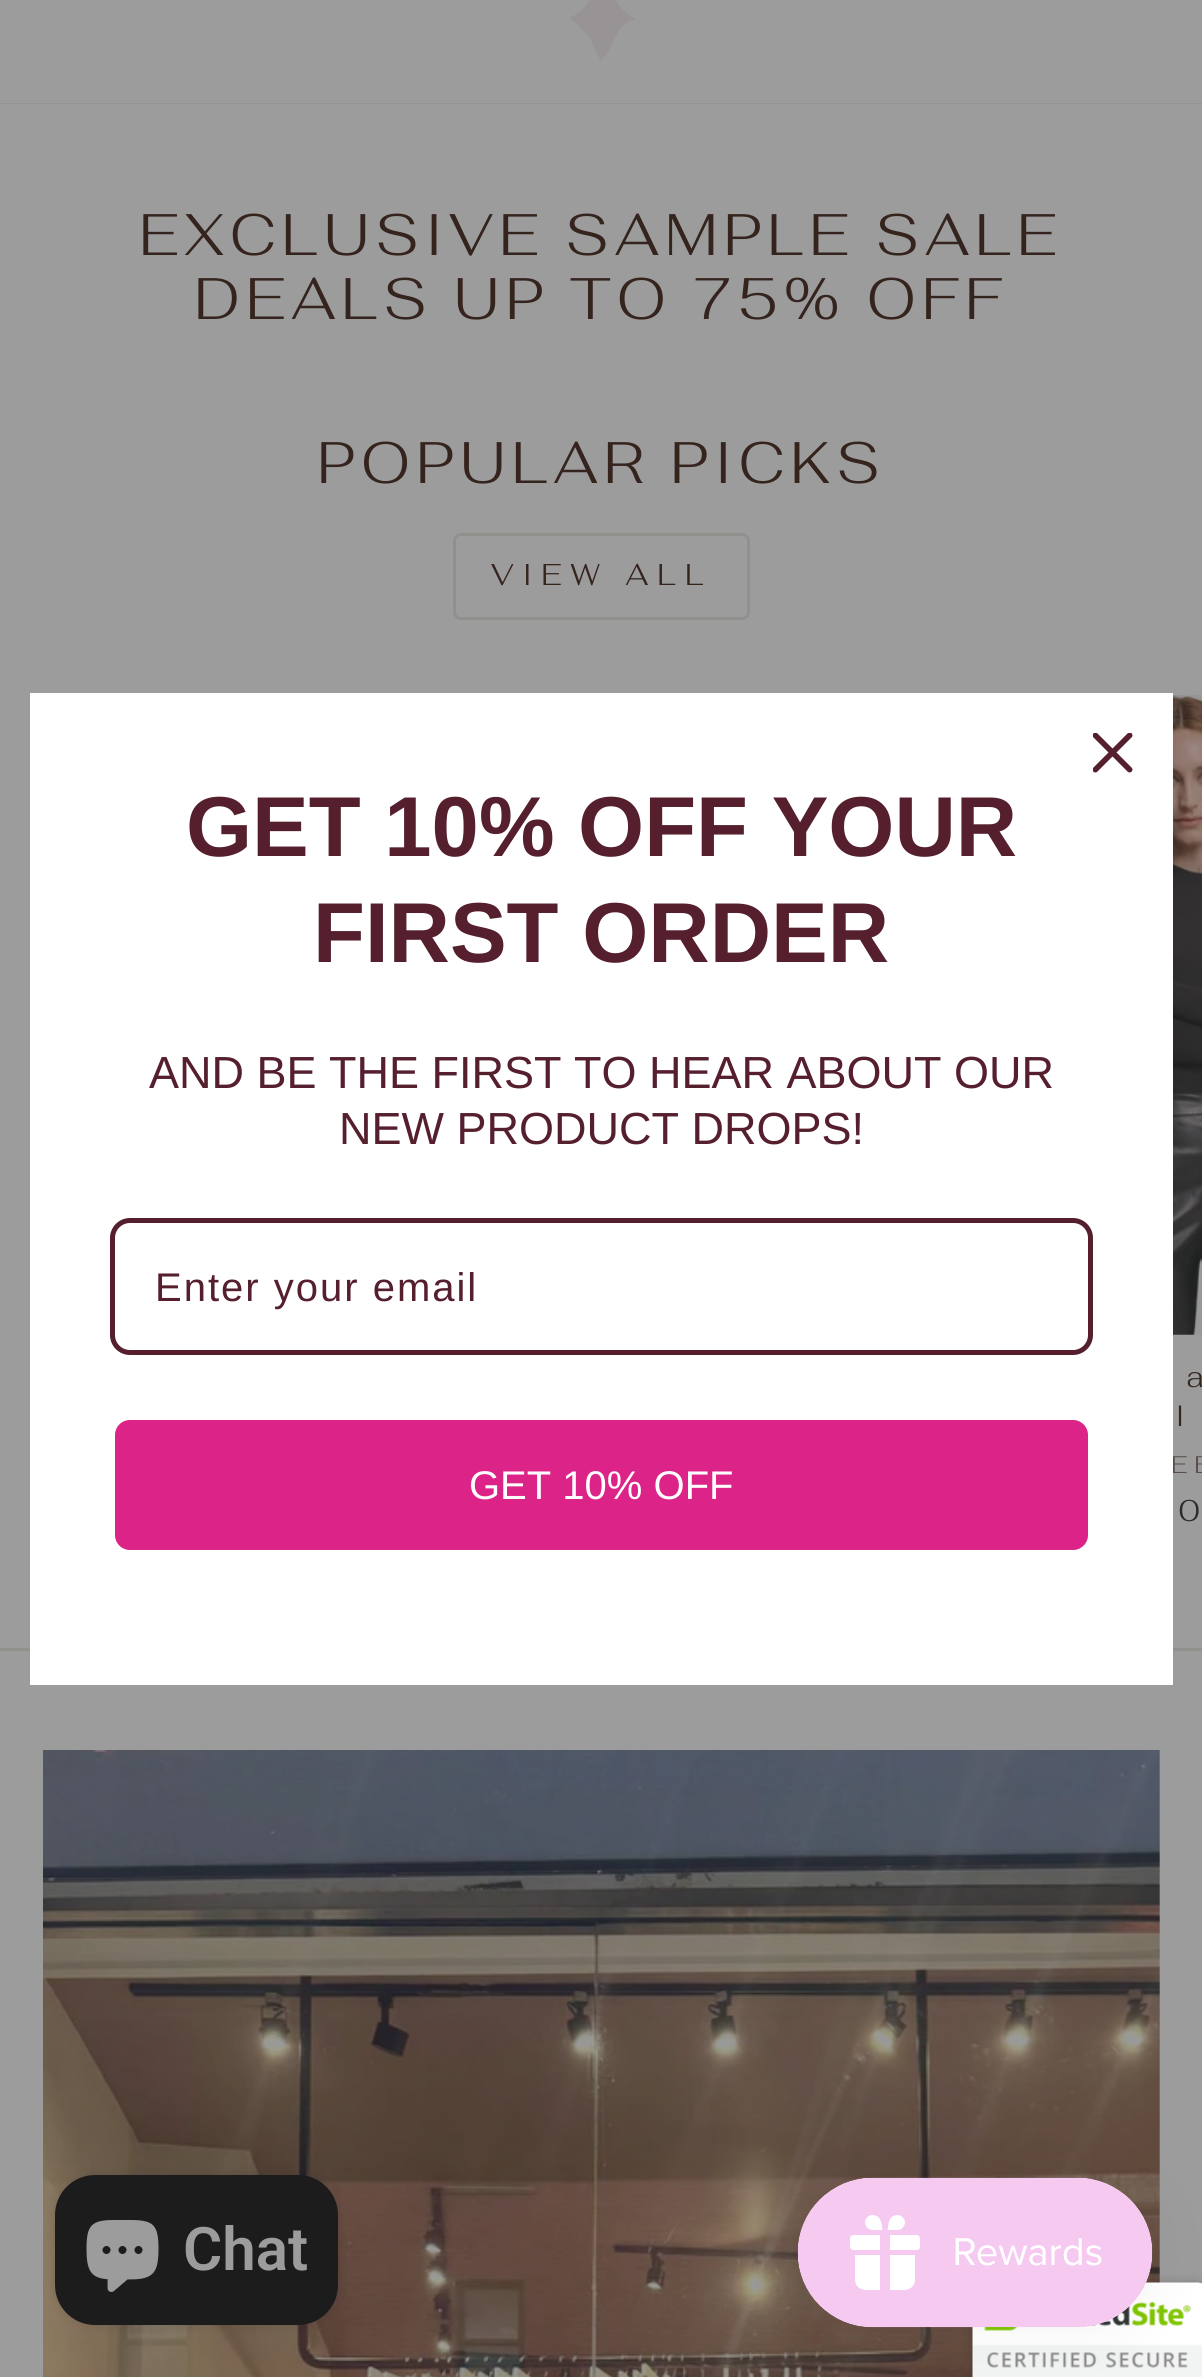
import math
import cairo

surface = cairo.ImageSurface(cairo.FORMAT_RGB24, 1202, 2377)
c = cairo.Context(surface)
options = cairo.FontOptions()
options.set_hint_metrics(cairo.HINT_METRICS_OFF)
options.set_hint_style(cairo.HINT_STYLE_NONE)
c.set_font_options(options)
c.set_miter_limit(4)
def C(code):
 c.set_source_rgb(*(v / 255 for v in bytes.fromhex(code[-6:])))
def F(family, size, italic, bold):
 c.select_font_face(family, cairo.FONT_SLANT_ITALIC if italic else cairo.FONT_SLANT_NORMAL, cairo.FONT_WEIGHT_BOLD if bold else cairo.FONT_WEIGHT_NORMAL)
 c.set_font_size(size)
def T(x, y, s):
 c.move_to(x, y)
 c.show_text(s)
def L(x, y, s, letter, word):
 c.move_to(x, y)
 for ch in s:
  c.show_text(ch)
  c.rel_move_to(letter + word * (ch == ' '), 0)
def R(x, y, w, h):
 c.rectangle(x, y, w, h)
 c.fill()
def Q(x, y, w, h, r):
 c.new_sub_path()
 for i, (u, v) in enumerate([(x + w - r, y + h - r), (x + r, y + h - r), (x + r, y + r), (x + w - r, y + r)]):
  c.arc(u, v, r, i * math.pi / 2, (i + 1) * math.pi / 2)
 c.close_path()
def S(x, y, w, h, r, blur, alpha):
 c.push_group_with_content(cairo.CONTENT_ALPHA)
 c.set_operator(cairo.OPERATOR_SOURCE)
 for i in range(15, -16, -2):
  e = blur * i / 6
  if min(w, h) + 2 * e > 0:
   c.set_source_rgba(0, 0, 0, alpha * math.erfc((i - 1) / 8.5) / 2)
   Q(x - e, y - e, w + 2 * e, h + 2 * e, max(0, min(r + e + blur * .6, min(w, h) / 2 + e)))
   c.fill()
 c.mask(c.pop_group())
def I(path, x, y, w, h):
 c.save()
 c.set_source_surface(cairo.ImageSurface.create_from_png(path), x, y)
 c.rectangle(x, y, w, h)
 c.fill()
 c.restore()
C('9c9c9c')
c.paint()
C('1c1c1c')
S(0,-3,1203,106,0,1,.2)
C('9c9c9c')
R(0,0,1202,103)
I('1.png',570,0,65,60)
F('Fahkwang Light',58.4,0,0)
C('35241e')
L(139,255,'EXCLUSIVE SAMPLE SALE',5.8,0)
L(194,319,'DEALS UP TO 75% OFF',5.8,0)
L(317,483,'POPULAR PICKS',5.8,0)
Q(454.5,534.5,294,84,6.5)
C('90908d')
c.set_line_width(3)
c.stroke()
F('Fahkwang Light',30,0,0)
C('35241e')
L(491,585,'VIEW ALL',9,0)
I('2.png',1173,695,29,640)
L(1186,1387,'a',2,0)
L(1176,1426,'l',2,0)
F('Fahkwang Light',24,0,0)
C('594e4a')
L(1171,1473,'EE',7,0)
F('Fahkwang Light',30,0,0)
C('2a2b2b')
L(1179,1521,'0',2,0)
C('90908d')
R(0,1648,1202,3)
I('3.png',43,1750,1117,627)
C('ffffff')
R(30,693,1143,992)
I('4.png',1093,733,40,40)
F('Liberation Sans',85,0,1)
C('551f2e')
T(186,856,'GET 10% OFF YOUR')
T(313,962,'FIRST ORDER')
F('Liberation Sans',45,0,0)
T(149,1088,'AND BE THE FIRST TO HEAR ABOUT OUR')
T(339,1144,'NEW PRODUCT DROPS!')
Q(112.5,1220.5,978,132,17.5)
c.set_line_width(5)
c.stroke()
F('Liberation Sans',40,0,0)
L(155,1301,'Enter your email',2,0)
C('dc2387')
Q(112.5,1417.5,978,135,17.5)
c.fill_preserve()
C('ffffff')
c.stroke()
T(469,1499,'GET 10% OFF')
C('1c1c1c')
S(55,2175,283,150,40,6,.15)
C('1c1c1c')
Q(55,2175,283,150,40)
c.fill()
I('5.png',86,2220,73,72)
F('Roboto SemiBold',60,0,0)
C('9c9c9c')
T(183,2270,'Chat')
C('000000')
S(973,2283,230,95,5,6,.2)
C('ffffff')
R(1198,2283,4,5)
I('7.png',972,2282,230,95)
C('000000')
S(798,2178,355,150,75,31,.05)
I('6.png',797,2177,356,151)
surface.write_to_png('o.png')
